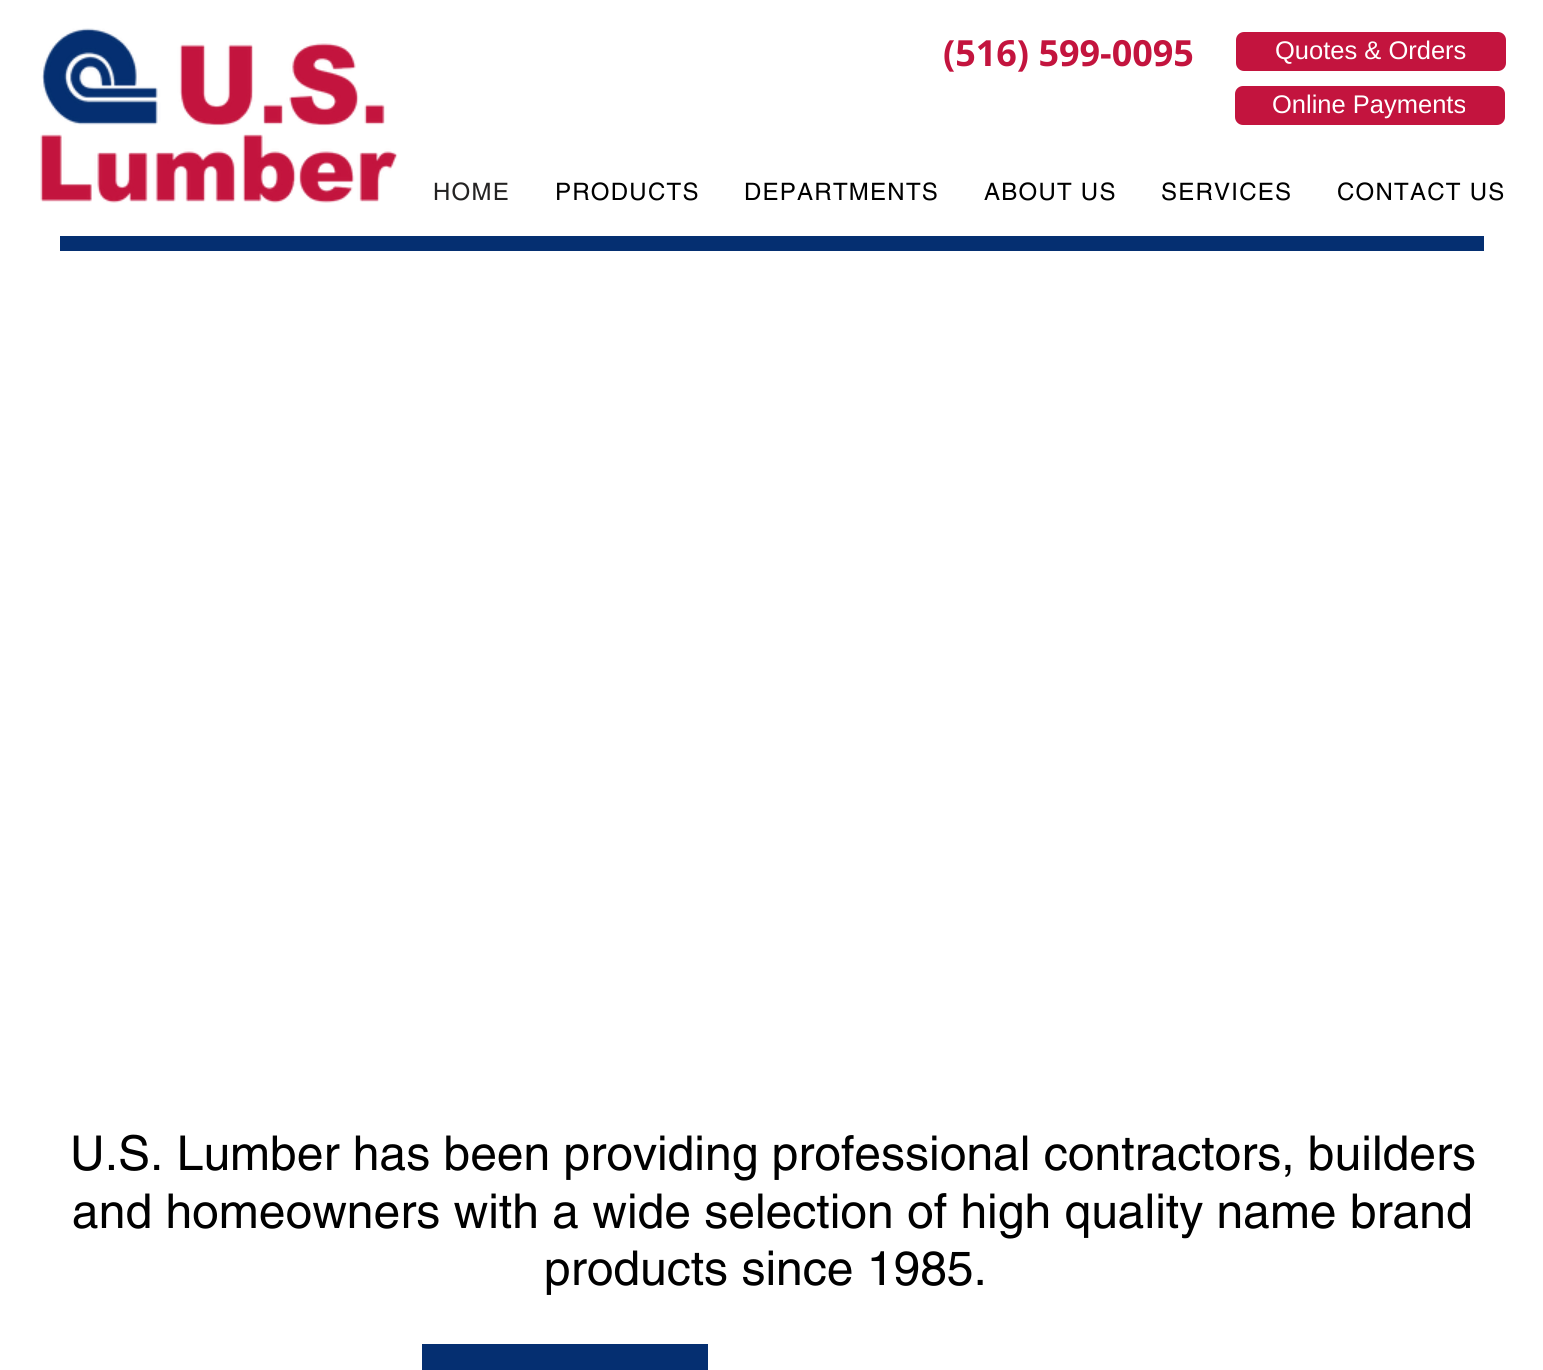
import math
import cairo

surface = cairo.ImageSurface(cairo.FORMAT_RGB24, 1543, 1370)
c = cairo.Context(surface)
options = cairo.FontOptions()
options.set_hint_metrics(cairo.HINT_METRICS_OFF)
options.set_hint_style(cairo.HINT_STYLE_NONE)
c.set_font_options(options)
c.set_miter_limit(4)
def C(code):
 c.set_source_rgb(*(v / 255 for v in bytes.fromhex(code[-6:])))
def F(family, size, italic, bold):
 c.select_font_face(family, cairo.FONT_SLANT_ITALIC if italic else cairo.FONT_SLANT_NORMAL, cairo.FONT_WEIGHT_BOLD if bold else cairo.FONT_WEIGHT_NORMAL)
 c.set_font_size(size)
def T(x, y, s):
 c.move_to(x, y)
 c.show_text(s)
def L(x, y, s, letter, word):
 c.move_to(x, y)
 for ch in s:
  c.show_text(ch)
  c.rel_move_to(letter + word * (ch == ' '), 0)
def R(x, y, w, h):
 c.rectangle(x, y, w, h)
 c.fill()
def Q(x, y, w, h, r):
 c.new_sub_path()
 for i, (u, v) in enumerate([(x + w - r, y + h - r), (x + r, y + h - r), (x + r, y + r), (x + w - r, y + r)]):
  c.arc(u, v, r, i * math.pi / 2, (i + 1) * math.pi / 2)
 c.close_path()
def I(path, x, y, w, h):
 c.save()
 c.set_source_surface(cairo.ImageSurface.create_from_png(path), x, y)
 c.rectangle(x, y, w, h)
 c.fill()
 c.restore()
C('ffffff')
c.paint()
I('1.png',40,28,358,175)
F('Open Sans',36,0,1)
C('c3143e')
T(943,66,'(516) 599-0095')
Q(1236,32,270,39,8)
c.fill()
F('Liberation Sans',25.5,0,0)
C('ffffff')
T(1275,59,'Quotes & Orders')
C('c3143e')
Q(1235,86,270,39,8)
c.fill()
C('ffffff')
T(1272,113,'Online Payments')
F('helvetica',24,0,0)
C('242323')
L(433,200,'HOME',1.25,0)
C('000000')
L(555,200,'PRODUCTS',1.25,0)
L(744,200,'DEPARTMENTS',1.25,0)
L(984,200,'ABOUT US',1.25,0)
L(1161,200,'SERVICES',1.25,0)
L(1337,200,'CONTACT US',1.25,0)
C('052f71')
R(60,236,1424,15)
F('helvetica',48,0,0)
C('000000')
T(70,1170,'U.S. Lumber has been providing professional contractors, builders')
T(72,1228,'and homeowners with a wide selection of high quality name brand')
T(544,1285,'products since 1985.')
C('052f71')
R(422,1344,286,26)
surface.write_to_png('o.png')
